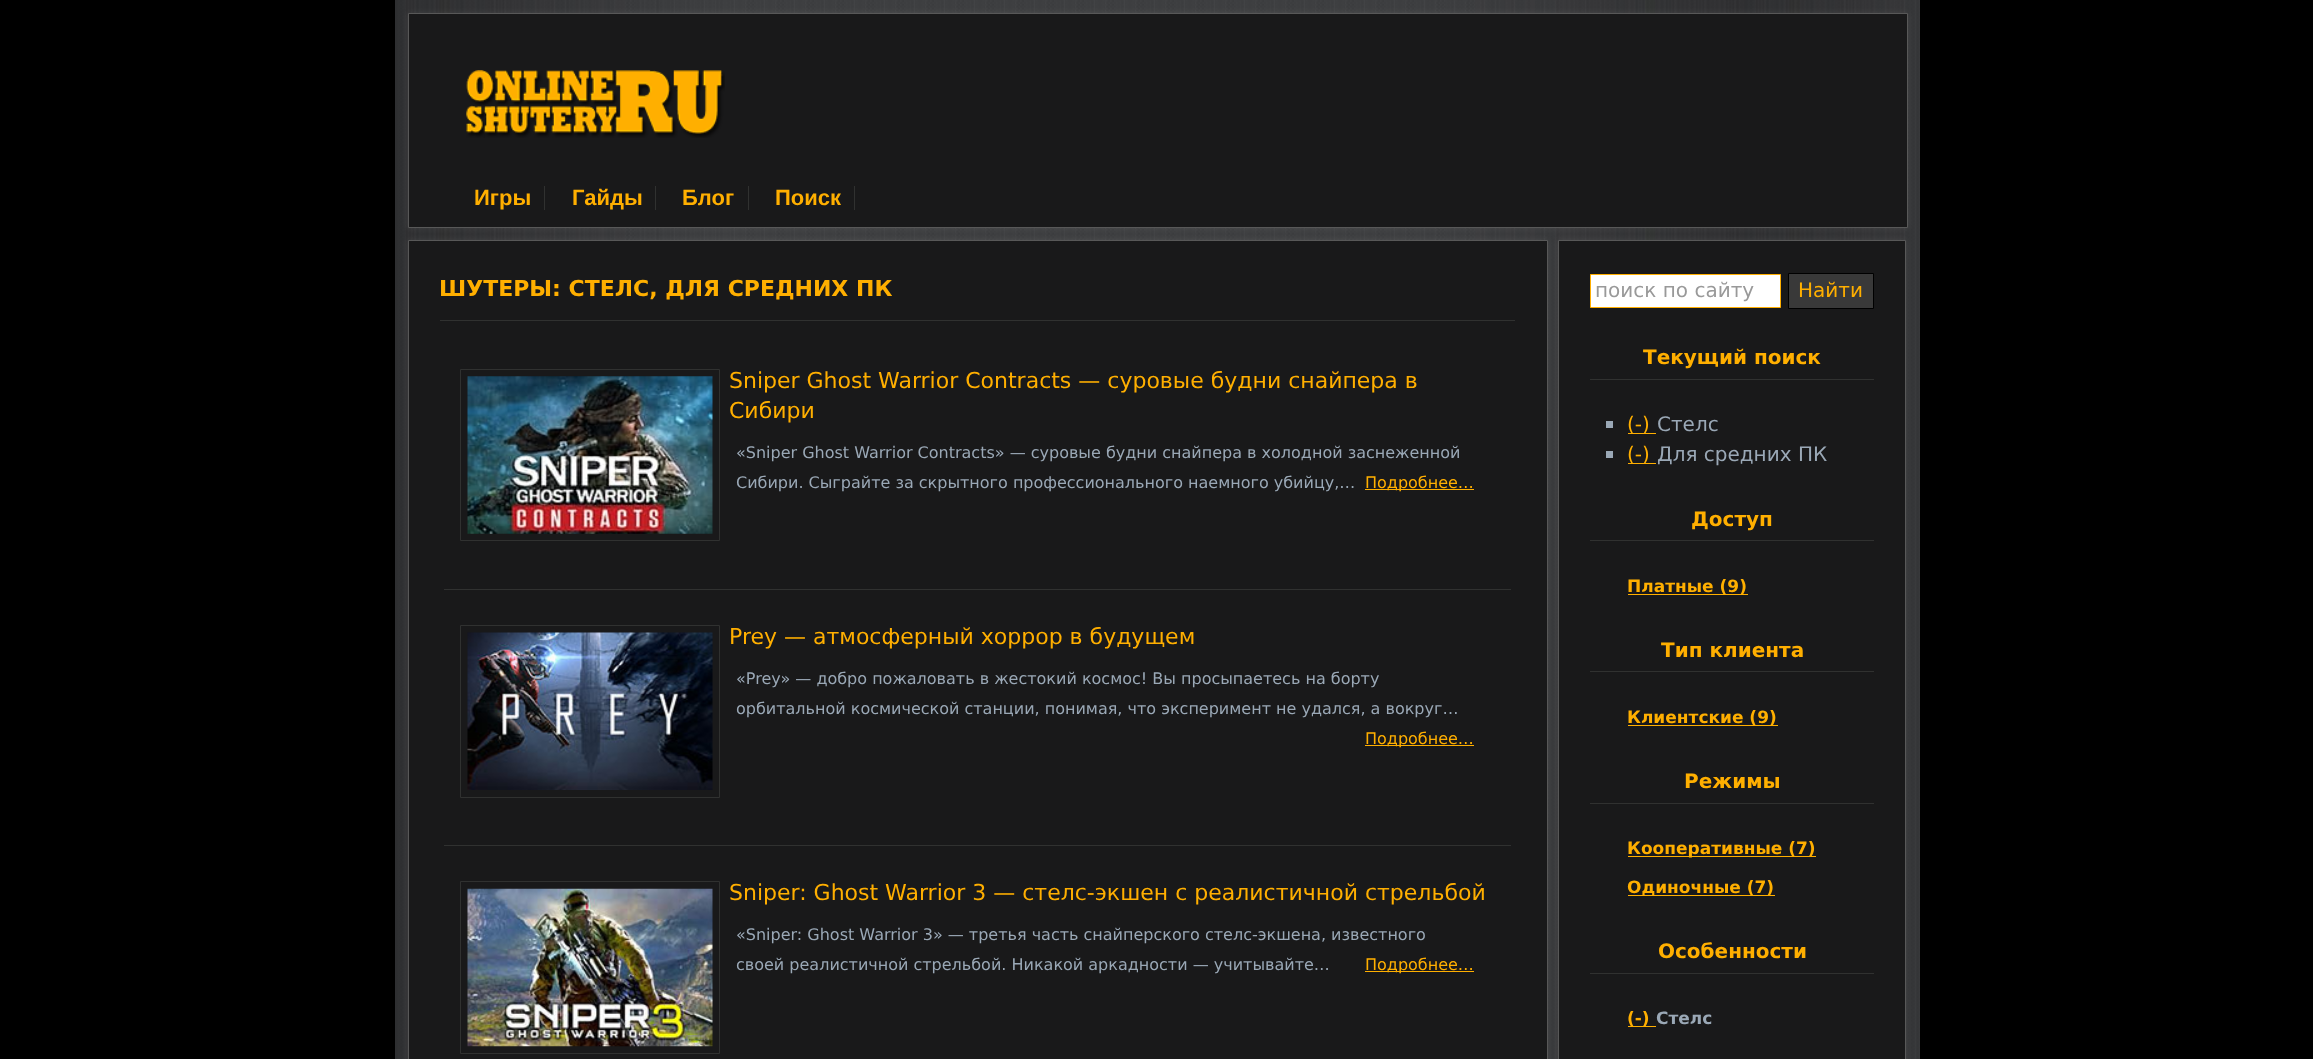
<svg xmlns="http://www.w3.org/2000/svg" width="2313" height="1059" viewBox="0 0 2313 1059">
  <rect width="100%" height="100%" fill="#000"/>
  <image x="395" y="0" width="1525" height="1059" href="img/1.png"/>
  <path d="M408 13h1500v215H408z" fill="#e2e2e21a" filter="blur(3px)"/>
  <path d="M408.5 13.5h1499v214H408.5z" fill="#19191a" stroke="#585858"/>
  <image x="466" y="70" width="259" height="68" href="img/2.png"/>
  <path d="M544 186h1v24H544z" fill="#303130"/>
  <path d="M655 186h1v24H655z" fill="#303130"/>
  <path d="M748 186h1v24H748z" fill="#303130"/>
  <path d="M854 186h1v24H854z" fill="#303130"/>
  <path d="M408 240h1140v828H408z" fill="#e2e2e21a" filter="blur(3px)"/>
  <path d="M408.5 240.5h1139v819H408.5z" fill="#19191a" stroke="#585858"/>
  <path d="M440 320h1075v1H440z" fill="#303130"/>
  <path d="M460.5 369.5h259v171H460.5z" fill="none" stroke="#303130"/>
  <image x="467" y="376" width="246" height="158" href="img/3.png"/>
  <path d="M1365 489h109v1H1365z" fill="#ffaf00"/>
  <path d="M444 589h1067v1H444z" fill="#303130"/>
  <path d="M460.5 625.5h259v172H460.5z" fill="none" stroke="#303130"/>
  <image x="467" y="632" width="246" height="158" href="img/4.png"/>
  <path d="M1365 745h109v1H1365z" fill="#ffaf00"/>
  <path d="M444 845h1067v1H444z" fill="#303130"/>
  <path d="M460.5 881.5h259v172H460.5z" fill="none" stroke="#303130"/>
  <image x="467" y="888" width="246" height="159" href="img/5.png"/>
  <path d="M1365 971h109v1H1365z" fill="#ffaf00"/>
  <path d="M1558 240h348v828H1558z" fill="#e2e2e21a" filter="blur(3px)"/>
  <path d="M1558.5 240.5h347v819H1558.5z" fill="#19191a" stroke="#585858"/>
  <path d="M1590.5 274.5h190v33H1590.5z" fill="#fff" stroke="#ffaf00"/>
  <path d="M1788.5 273.5h85v35H1788.5z" fill="#393939" stroke="#000"/>
  <path d="M1590 379h284v1H1590z" fill="#303130"/>
  <path d="M1606 421h7v7H1606z" fill="#9aa8b6"/>
  <path d="M1628 433h28v1H1628z" fill="#ffaf00"/>
  <path d="M1606 451h7v7H1606z" fill="#9aa8b6"/>
  <path d="M1628 463h28v1H1628z" fill="#ffaf00"/>
  <path d="M1590 540h284v1H1590z" fill="#303130"/>
  <path d="M1628 594h120v1H1628z" fill="#ffaf00"/>
  <path d="M1590 671h284v1H1590z" fill="#303130"/>
  <path d="M1628 725h150v1H1628z" fill="#ffaf00"/>
  <path d="M1590 803h284v1H1590z" fill="#303130"/>
  <path d="M1628 856h188v1H1628z" fill="#ffaf00"/>
  <path d="M1628 895h147v1H1628z" fill="#ffaf00"/>
  <path d="M1590 973h284v1H1590z" fill="#303130"/>
  <path d="M1628 1026h28v1H1628z" fill="#ffaf00"/>
  <g font-family="Liberation Sans" font-size="22" font-weight="bold" fill="#ffaf00">
    <text x="474" y="205">Игры</text>
    <text x="572" y="205">Гайды</text>
    <text x="682" y="205">Блог</text>
    <text x="775" y="205">Поиск</text>
  </g>
  <text x="439" y="296" font-family="DejaVu Sans" font-size="22" font-weight="bold" fill="#ffaf00">ШУТЕРЫ: СТЕЛС, ДЛЯ СРЕДНИХ ПК</text>
  <g font-family="DejaVu Sans" font-size="22" fill="#ffaf00">
    <text x="729" y="388">Sniper Ghost Warrior Contracts — суровые будни снайпера в</text>
    <text x="729" y="418">Сибири</text>
  </g>
  <g font-family="DejaVu Sans" font-size="16" fill="#9aa8b6">
    <text x="736" y="458">«Sniper Ghost Warrior Contracts» — суровые будни снайпера в холодной заснеженной</text>
    <text x="736" y="488">Сибири. Сыграйте за скрытного профессионального наемного убийцу,…</text>
  </g>
  <text x="1365" y="488" font-family="DejaVu Sans" font-size="16" fill="#ffaf00">Подробнее…</text>
  <text x="729" y="644" font-family="DejaVu Sans" font-size="22" fill="#ffaf00">Prey — атмосферный хоррор в будущем</text>
  <g font-family="DejaVu Sans" font-size="16" fill="#9aa8b6">
    <text x="736" y="684">«Prey» — добро пожаловать в жестокий космос! Вы просыпаетесь на борту</text>
    <text x="736" y="714">орбитальной космической станции, понимая, что эксперимент не удался, а вокруг…</text>
  </g>
  <text x="1365" y="744" font-family="DejaVu Sans" font-size="16" fill="#ffaf00">Подробнее…</text>
  <text x="729" y="900" font-family="DejaVu Sans" font-size="22" fill="#ffaf00">Sniper: Ghost Warrior 3 — стелс-экшен с реалистичной стрельбой</text>
  <g font-family="DejaVu Sans" font-size="16" fill="#9aa8b6">
    <text x="736" y="940">«Sniper: Ghost Warrior 3» — третья часть снайперского стелс-экшена, известного</text>
    <text x="736" y="970">своей реалистичной стрельбой. Никакой аркадности — учитывайте…</text>
  </g>
  <text x="1365" y="970" font-family="DejaVu Sans" font-size="16" fill="#ffaf00">Подробнее…</text>
  <text x="1595" y="297" font-family="DejaVu Sans" font-size="20" fill="#999">поиск по сайту</text>
  <text x="1798" y="297" font-family="DejaVu Sans" font-size="20" fill="#ffaf00">Найти</text>
  <text x="1643" y="364" font-family="DejaVu Sans" font-size="20" font-weight="bold" fill="#ffaf00">Текущий поиск</text>
  <text x="1627" y="431" font-family="DejaVu Sans" font-size="20" fill="#ffaf00">(-)</text>
  <text x="1657" y="431" font-family="DejaVu Sans" font-size="20" fill="#9aa8b6">Стелс</text>
  <text x="1627" y="461" font-family="DejaVu Sans" font-size="20" fill="#ffaf00">(-)</text>
  <text x="1657" y="461" font-family="DejaVu Sans" font-size="20" fill="#9aa8b6">Для средних ПК</text>
  <text x="1691" y="526" font-family="DejaVu Sans" font-size="20" font-weight="bold" fill="#ffaf00">Доступ</text>
  <text x="1627" y="592" font-family="DejaVu Sans" font-size="17" font-weight="bold" fill="#ffaf00">Платные (9)</text>
  <text x="1661" y="657" font-family="DejaVu Sans" font-size="20" font-weight="bold" fill="#ffaf00">Тип клиента</text>
  <text x="1627" y="723" font-family="DejaVu Sans" font-size="17" font-weight="bold" fill="#ffaf00">Клиентские (9)</text>
  <text x="1684" y="788" font-family="DejaVu Sans" font-size="20" font-weight="bold" fill="#ffaf00">Режимы</text>
  <g font-family="DejaVu Sans" font-size="17" font-weight="bold" fill="#ffaf00">
    <text x="1627" y="854">Кооперативные (7)</text>
    <text x="1627" y="893">Одиночные (7)</text>
  </g>
  <text x="1658" y="958" font-family="DejaVu Sans" font-size="20" font-weight="bold" fill="#ffaf00">Особенности</text>
  <text x="1627" y="1024" font-family="DejaVu Sans" font-size="17" font-weight="bold" fill="#ffaf00">(-)</text>
  <text x="1656" y="1024" font-family="DejaVu Sans" font-size="17" font-weight="bold" fill="#9aa8b6">Стелс</text>
</svg>
